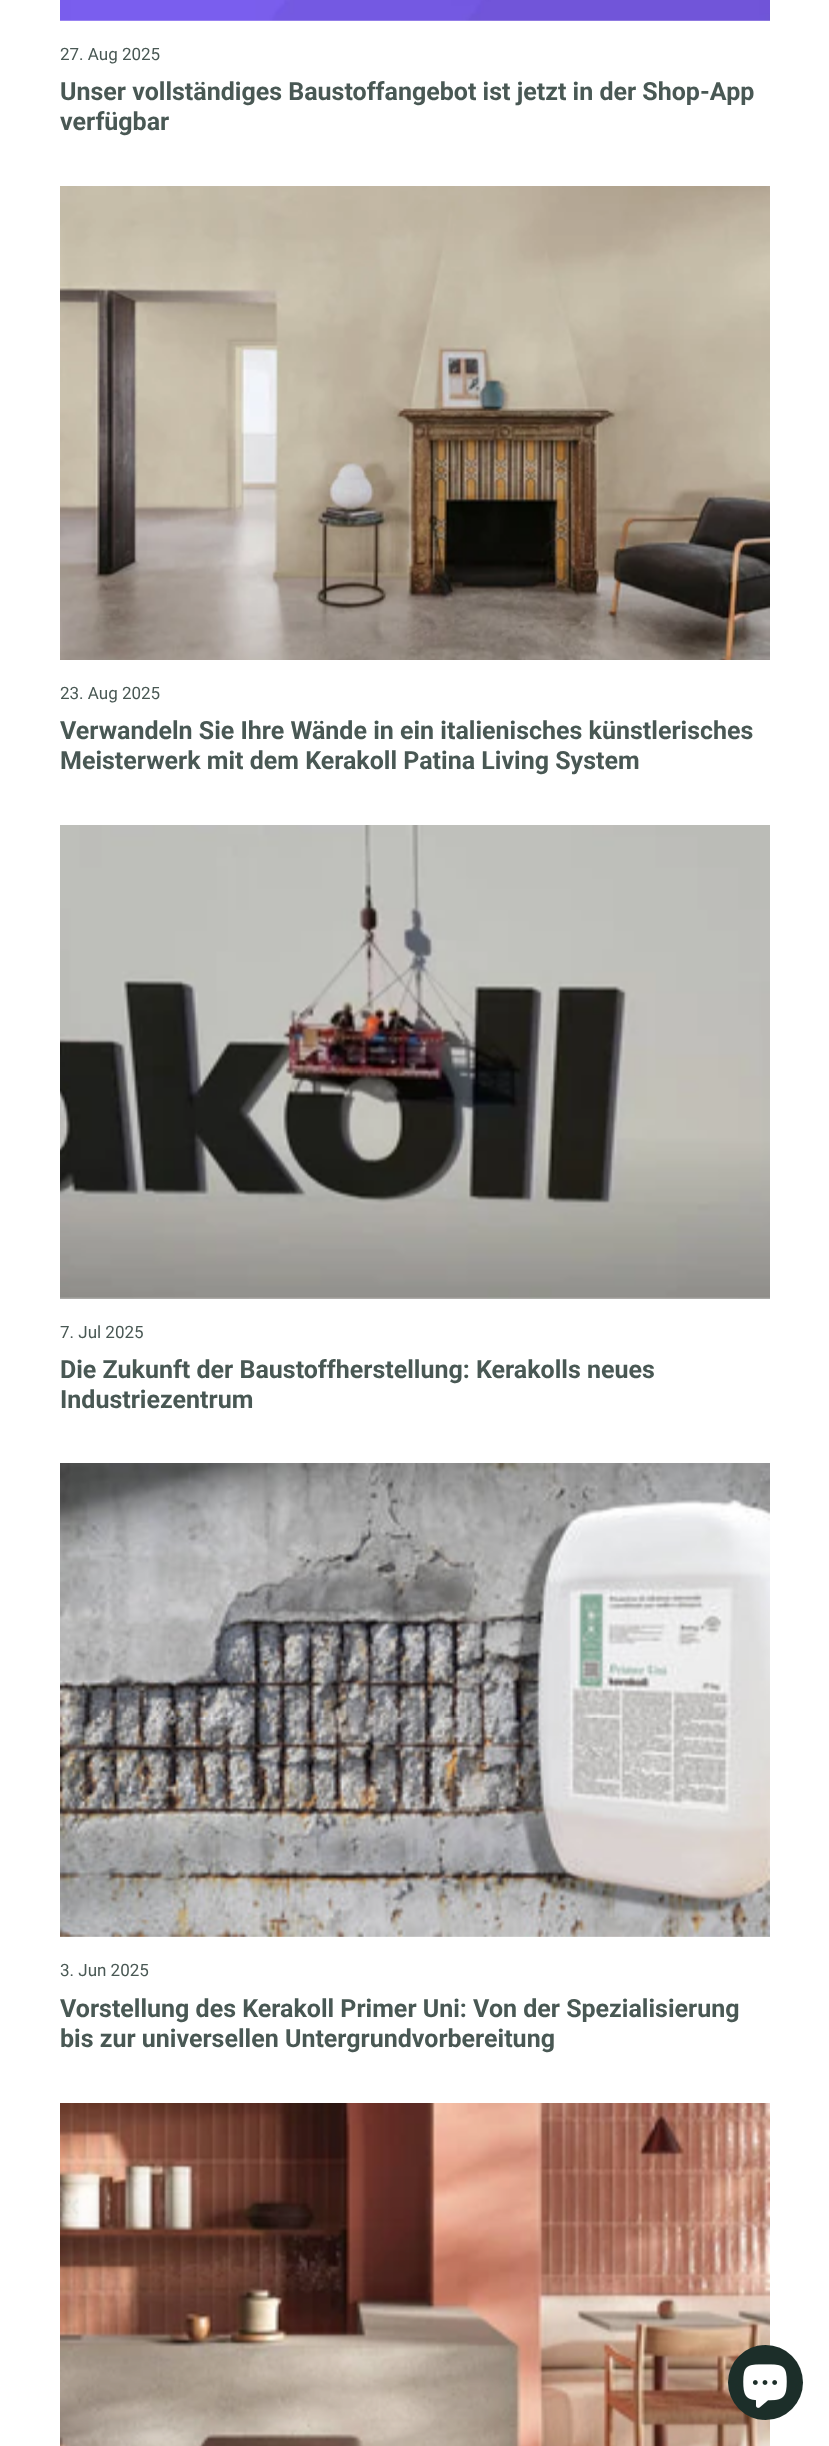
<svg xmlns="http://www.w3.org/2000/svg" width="829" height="2446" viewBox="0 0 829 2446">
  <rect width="100%" height="100%" fill="#fff"/>
  <image x="60" y="0" width="710" height="21" href="img/1.png"/>
  <image x="60" y="186" width="710" height="474" href="img/2.png"/>
  <image x="60" y="825" width="710" height="474" href="img/3.png"/>
  <image x="60" y="1463" width="710" height="474" href="img/4.png"/>
  <image x="60" y="2103" width="710" height="343" href="img/5.png"/>
  <circle cx="765.5" cy="2382.5" r="37.5" fill="#1c2e29"/>
  <image x="743" y="2364" width="44" height="44" href="img/6.png"/>
  <text x="60" y="60" font-family="Roboto" font-size="17" fill="#495854">27. Aug 2025</text>
  <g font-family="Roboto" font-size="25" font-weight="bold" fill="#495854">
    <text x="60" y="100">Unser vollständiges Baustoffangebot ist jetzt in der Shop-App</text>
    <text x="60" y="130">verfügbar</text>
  </g>
  <text x="60" y="699" font-family="Roboto" font-size="17" fill="#495854">23. Aug 2025</text>
  <g font-family="Roboto" font-size="25" font-weight="bold" fill="#495854">
    <text x="60" y="739">Verwandeln Sie Ihre Wände in ein italienisches künstlerisches</text>
    <text x="60" y="769">Meisterwerk mit dem Kerakoll Patina Living System</text>
  </g>
  <text x="60" y="1338" font-family="Roboto" font-size="17" fill="#495854">7. Jul 2025</text>
  <g font-family="Roboto" font-size="25" font-weight="bold" fill="#495854">
    <text x="60" y="1378">Die Zukunft der Baustoffherstellung: Kerakolls neues</text>
    <text x="60" y="1408">Industriezentrum</text>
  </g>
  <text x="60" y="1976" font-family="Roboto" font-size="17" fill="#495854">3. Jun 2025</text>
  <g font-family="Roboto" font-size="25" font-weight="bold" fill="#495854">
    <text x="60" y="2017">Vorstellung des Kerakoll Primer Uni: Von der Spezialisierung</text>
    <text x="60" y="2047">bis zur universellen Untergrundvorbereitung</text>
  </g>
</svg>
